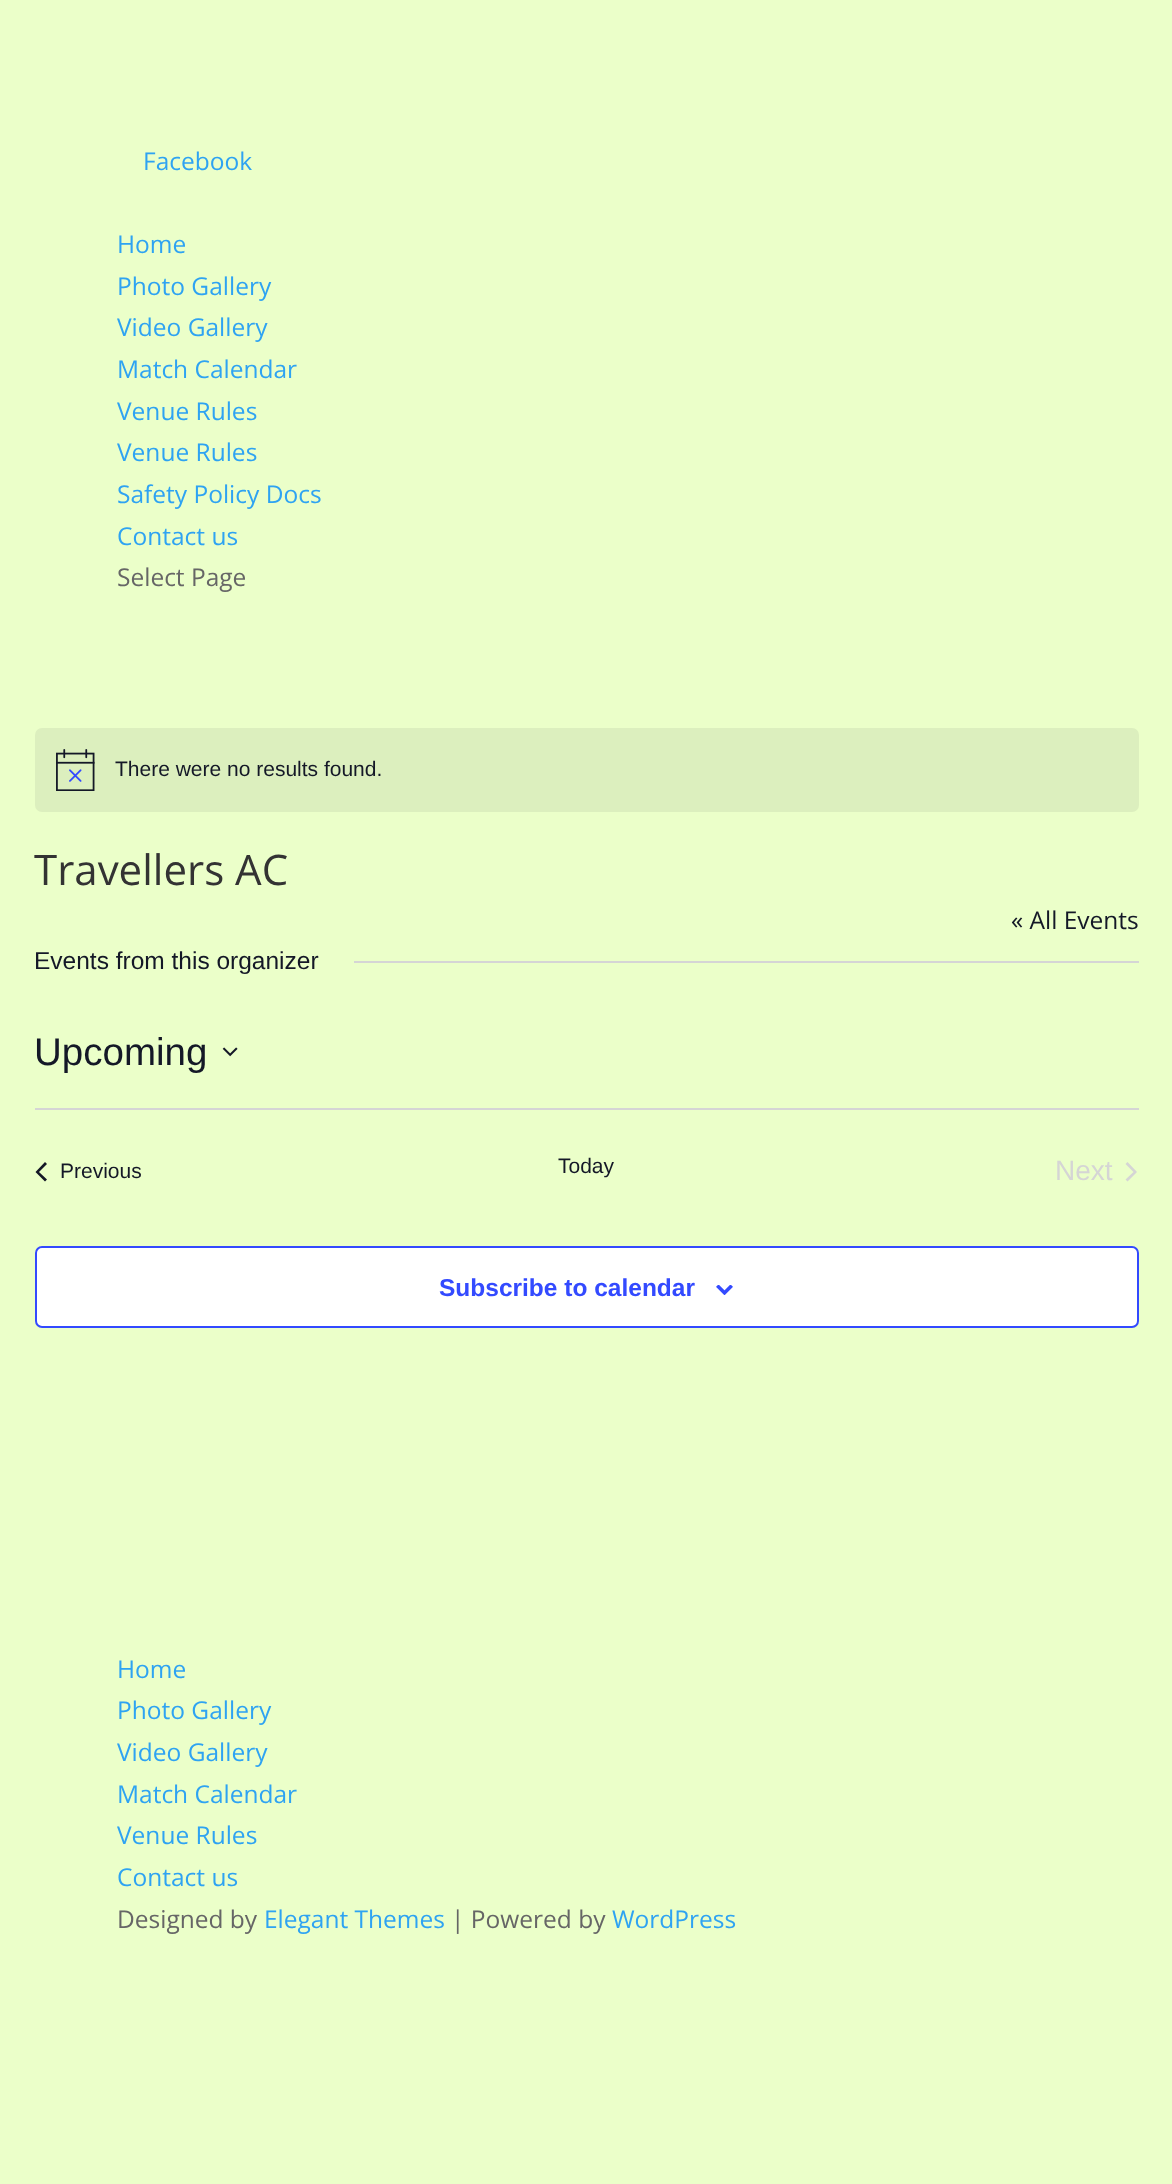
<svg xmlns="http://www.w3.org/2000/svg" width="1172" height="2184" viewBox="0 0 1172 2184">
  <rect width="100%" height="100%" fill="#ebffc9"/>
  <rect x="35" y="728" width="1104" height="84" rx="7" fill="#dcefbe"/>
  <image x="56" y="749" width="39" height="42" href="img/1.png"/>
  <path d="M354 961h785v2H354z" fill="#d5d5d5"/>
  <image x="222" y="1047" width="16" height="10" href="img/2.png"/>
  <path d="M35 1108h1104v2H35z" fill="#d5d5d5"/>
  <path d="M47 1179.5L45 1181.5L35.5 1172L45 1162L47 1164L39 1172Z" fill="#141827"/>
  <path d="M1125.5 1164L1127.5 1162L1137 1172L1127.5 1181.5L1125.5 1179.5L1133.5 1172Z" fill="#d5d5d5"/>
  <rect x="36" y="1247" width="1102" height="80" rx="6" fill="#fff" stroke="#334aff" stroke-width="2"/>
  <image x="716" y="1285" width="17" height="10" href="img/3.png"/>
  <g font-family="Open Sans" font-size="24.5" fill="#2ea3f2">
    <text x="143" y="170">Facebook</text>
    <text x="117" y="253">Home</text>
    <text x="117" y="295">Photo Gallery</text>
    <text x="117" y="336">Video Gallery</text>
    <text x="117" y="378">Match Calendar</text>
    <text x="117" y="420">Venue Rules</text>
    <text x="117" y="461">Venue Rules</text>
    <text x="117" y="503">Safety Policy Docs</text>
    <text x="117" y="545">Contact us</text>
  </g>
  <text x="117" y="586" font-family="Open Sans" font-size="24.5" fill="#666">Select Page</text>
  <text x="115" y="776" font-family="Liberation Sans" font-size="21" fill="#141827">There were no results found.</text>
  <text x="34" y="885" font-family="Open Sans" font-size="42" fill="#333">Travellers AC</text>
  <text x="1011" y="929" font-family="Open Sans" font-size="24.5" fill="#141827">« All Events</text>
  <text x="34" y="969" font-family="Liberation Sans" font-size="24.5" fill="#141827">Events from this organizer</text>
  <text x="34" y="1065" font-family="Liberation Sans" font-size="38.5" fill="#141827">Upcoming</text>
  <g font-family="Liberation Sans" font-size="21" fill="#141827">
    <text x="60" y="1178">Previous</text>
    <text x="558" y="1173">Today</text>
  </g>
  <text x="1055" y="1180" font-family="Liberation Sans" font-size="28" fill="#d5d5d5">Next</text>
  <text x="439" y="1296" font-family="Liberation Sans" font-size="24.5" font-weight="bold" fill="#334aff">Subscribe to calendar</text>
  <g font-family="Open Sans" font-size="24.5" fill="#2ea3f2">
    <text x="117" y="1678">Home</text>
    <text x="117" y="1719">Photo Gallery</text>
    <text x="117" y="1761">Video Gallery</text>
    <text x="117" y="1803">Match Calendar</text>
    <text x="117" y="1844">Venue Rules</text>
    <text x="117" y="1886">Contact us</text>
  </g>
  <text x="117" y="1928" font-family="Open Sans" font-size="24.5" fill="#666">Designed by</text>
  <text x="264" y="1928" font-family="Open Sans" font-size="24.5" fill="#2ea3f2">Elegant Themes</text>
  <text x="451" y="1928" font-family="Open Sans" font-size="24.5" fill="#666">| Powered by</text>
  <text x="612" y="1928" font-family="Open Sans" font-size="24.5" fill="#2ea3f2">WordPress</text>
</svg>
